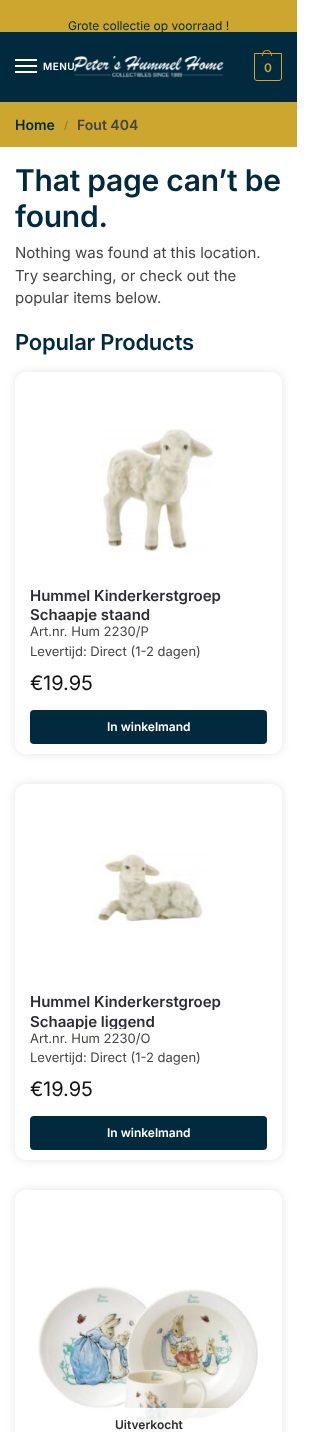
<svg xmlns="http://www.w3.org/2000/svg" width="312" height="1432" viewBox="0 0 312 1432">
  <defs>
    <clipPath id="clip1"><path d="M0 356H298V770H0ZM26 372H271C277 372 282 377 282 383V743C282 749 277 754 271 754H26C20 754 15 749 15 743V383C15 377 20 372 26 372Z" clip-rule="evenodd"/></clipPath>
    <clipPath id="clip2"><path d="M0 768H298V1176H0ZM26 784H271C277 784 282 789 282 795V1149C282 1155 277 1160 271 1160H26C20 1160 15 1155 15 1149V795C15 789 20 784 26 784Z" clip-rule="evenodd"/></clipPath>
    <clipPath id="clip3"><path d="M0 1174H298V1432H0ZM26 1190H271C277 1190 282 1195 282 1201V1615C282 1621 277 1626 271 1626H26C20 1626 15 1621 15 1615V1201C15 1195 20 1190 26 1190Z" clip-rule="evenodd"/></clipPath>
    <clipPath id="clip4"><path d="M30 586h237v36H30z"/></clipPath>
    <clipPath id="clip5"><path d="M30 992h237v37H30z"/></clipPath>
  </defs>
  <rect width="100%" height="100%" fill="#fff"/>
  <path d="M0 0h297v32H0z" fill="#cda630"/>
  <path d="M0 32h297v70H0z" fill="#022a3e"/>
  <path d="M15 59h22v2H15z" fill="#fff"/>
  <path d="M15 65h22v2H15z" fill="#fff"/>
  <path d="M15 71h22v2H15z" fill="#fff"/>
  <image x="73" y="56" width="151" height="22" href="img/1.png"/>
  <path d="M254.5 53.5H281.5V78C281.5 79.5 280.5 80.5 279 80.5H257C255.5 80.5 254.5 79.5 254.5 78Z" fill="none" stroke="#cda630"/>
  <path d="M267 50C270.5 50 272 53 272 56H262C262 53 263.5 50 267 50ZM267 51C270 51 271 53.5 271 56H263C263 53.5 264 51 267 51Z" fill="#dc9814" fill-rule="evenodd"/>
  <path d="M0 102h297v45H0z" fill="#cda630"/>
  <g clip-path="url(#clip1)">
    <rect x="15" y="372" width="267" height="382" rx="11" fill="#0000001a" filter="blur(5px)"/>
  </g>
  <image x="100" y="428" width="114" height="124" href="img/2.png"/>
  <rect x="30" y="710" width="237" height="34" rx="4" fill="#022a3e"/>
  <g clip-path="url(#clip2)">
    <rect x="15" y="784" width="267" height="376" rx="11" fill="#0000001a" filter="blur(5px)"/>
  </g>
  <image x="93" y="851" width="114" height="74" href="img/3.png"/>
  <rect x="30" y="1116" width="237" height="34" rx="4" fill="#022a3e"/>
  <g clip-path="url(#clip3)">
    <rect x="15" y="1190" width="267" height="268" rx="11" fill="#0000001a" filter="blur(5px)"/>
  </g>
  <image x="38" y="1286" width="220" height="146" href="img/4.png"/>
  <path d="M125 1408h106v24H125z" fill="#ffffffd9"/>
  <text x="68" y="30" font-family="Inter" font-size="12" fill="#022a3e">Grote collectie op voorraad !</text>
  <text x="43" y="70" font-family="Inter" font-size="10" font-weight="600" letter-spacing="0.5" fill="#fff">MENU</text>
  <text x="264" y="72" font-family="Inter" font-size="12" font-weight="600" letter-spacing="-1" fill="#cda630">0</text>
  <text x="15" y="130" font-family="Inter" font-size="14" font-weight="600" fill="#022a3e">Home</text>
  <text x="64" y="129" font-family="Inter" font-size="11" font-weight="600" fill="#967f38">/</text>
  <text x="77" y="130" font-family="Inter" font-size="14" font-weight="600" fill="#444">Fout 404</text>
  <g font-family="Inter" font-size="30" font-weight="600" letter-spacing="-0.25" fill="#022a3e">
    <text x="15" y="191">That page can’t be</text>
    <text x="15" y="227">found.</text>
  </g>
  <g font-family="Inter" font-size="15" fill="#444">
    <text x="15" y="258">Nothing was found at this location.</text>
    <text x="15" y="281">Try searching, or check out the</text>
    <text x="15" y="303">popular items below.</text>
  </g>
  <text x="15" y="350" font-family="Inter" font-size="22" font-weight="600" letter-spacing="-0.25" fill="#022a3e">Popular Products</text>
  <text x="30" y="601" font-family="Inter" font-size="15" font-weight="600" fill="#2c2d33">Hummel Kinderkerstgroep</text>
  <g clip-path="url(#clip4)">
    <text x="30" y="620" font-family="Inter" font-size="15" font-weight="600" fill="#2c2d33">Schaapje staand</text>
  </g>
  <g font-family="Inter" font-size="13" fill="#444">
    <text x="30" y="636">Art.nr. Hum 2230/P</text>
    <text x="30" y="656">Levertijd: Direct (1-2 dagen)</text>
  </g>
  <g font-family="Inter" font-size="20" fill="#111">
    <text x="30" y="690">€</text>
    <text x="43" y="690">19.95</text>
  </g>
  <text x="107" y="731" font-family="Inter" font-size="12" font-weight="600" fill="#fff">In winkelmand</text>
  <text x="30" y="1007" font-family="Inter" font-size="15" font-weight="600" fill="#2c2d33">Hummel Kinderkerstgroep</text>
  <g clip-path="url(#clip5)">
    <text x="30" y="1027" font-family="Inter" font-size="15" font-weight="600" fill="#2c2d33">Schaapje liggend</text>
  </g>
  <g font-family="Inter" font-size="13" fill="#444">
    <text x="30" y="1043">Art.nr. Hum 2230/O</text>
    <text x="30" y="1062">Levertijd: Direct (1-2 dagen)</text>
  </g>
  <g font-family="Inter" font-size="20" fill="#111">
    <text x="30" y="1096">€</text>
    <text x="43" y="1096">19.95</text>
  </g>
  <text x="107" y="1137" font-family="Inter" font-size="12" font-weight="600" fill="#fff">In winkelmand</text>
  <text x="115" y="1429" font-family="Inter" font-size="12" font-weight="600" fill="#2c2d33">Uitverkocht</text>
</svg>
